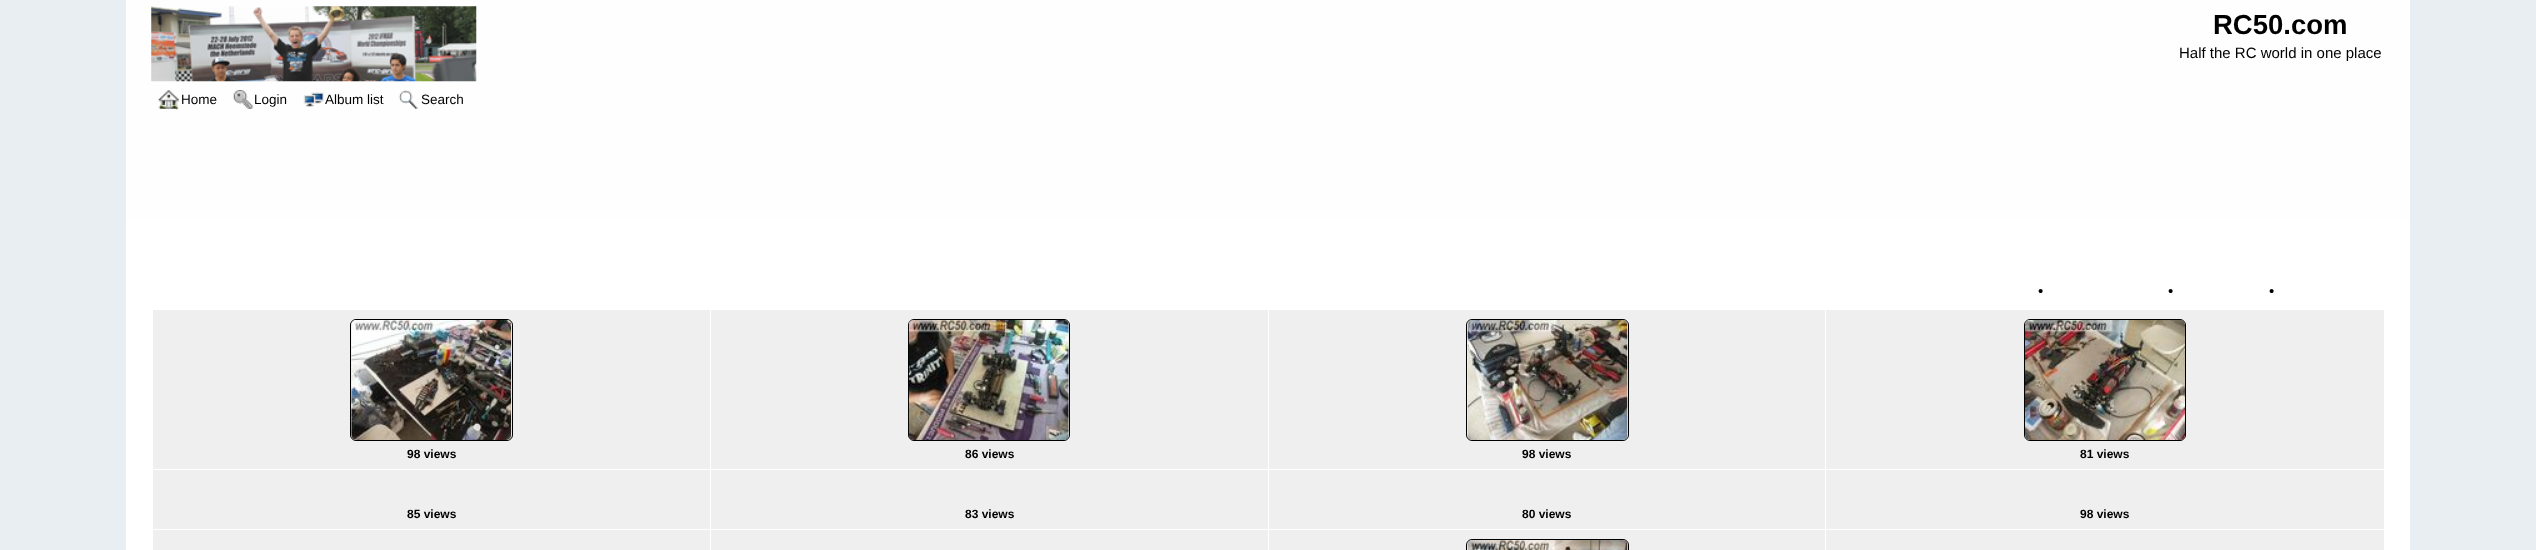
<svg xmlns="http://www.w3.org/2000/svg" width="2536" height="550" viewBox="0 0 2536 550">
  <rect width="100%" height="100%" fill="#e9eef2"/>
  <path d="M126 0h2284v219H126z" fill="#fefefe"/>
  <image x="151" y="6" width="326" height="76" href="img/1.png"/>
  <image x="158" y="90" width="21" height="20" href="img/2.png"/>
  <image x="233" y="90" width="20" height="19" href="img/3.png"/>
  <image x="303" y="92" width="21" height="15" href="img/4.png"/>
  <image x="398" y="90" width="20" height="19" href="img/5.png"/>
  <path d="M126 219h2284v331H126z" fill="#fff"/>
  <path d="M153 310h557v159H153z" fill="#efefef"/>
  <rect x="350.5" y="319.5" width="162" height="121" rx="5.5" fill="none" stroke="#000"/>
  <image x="351" y="320" width="161" height="120" href="img/6.png"/>
  <path d="M711 310h557v159H711z" fill="#efefef"/>
  <rect x="908.5" y="319.5" width="161" height="121" rx="5.5" fill="none" stroke="#000"/>
  <image x="908" y="320" width="161" height="120" href="img/7.png"/>
  <path d="M1269 310h556v159H1269z" fill="#efefef"/>
  <rect x="1466.5" y="319.5" width="162" height="121" rx="5.5" fill="none" stroke="#000"/>
  <image x="1467" y="320" width="161" height="120" href="img/8.png"/>
  <path d="M1826 310h558v159H1826z" fill="#efefef"/>
  <rect x="2024.5" y="319.5" width="161" height="121" rx="5.5" fill="none" stroke="#000"/>
  <image x="2025" y="320" width="160" height="120" href="img/9.png"/>
  <path d="M153 470h557v59H153z" fill="#efefef"/>
  <path d="M711 470h557v59H711z" fill="#efefef"/>
  <path d="M1269 470h556v59H1269z" fill="#efefef"/>
  <path d="M1826 470h558v59H1826z" fill="#efefef"/>
  <path d="M153 530h557v20H153z" fill="#efefef"/>
  <path d="M711 530h557v20H711z" fill="#efefef"/>
  <path d="M1269 530h556v20H1269z" fill="#efefef"/>
  <rect x="1466.5" y="539.5" width="162" height="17" rx="5.5" fill="none" stroke="#000"/>
  <image x="1467" y="540" width="161" height="10" href="img/10.png"/>
  <path d="M1826 530h558v20H1826z" fill="#efefef"/>
  <text x="2213" y="34" font-family="Liberation Sans" font-size="27.5" font-weight="bold" fill="#000">RC50.com</text>
  <text x="2179" y="58" font-family="Liberation Sans" font-size="15" fill="#000">Half the RC world in one place</text>
  <g font-family="Liberation Sans" font-size="13.5" fill="#000">
    <text x="181" y="104">Home</text>
    <text x="254" y="104">Login</text>
    <text x="325" y="104">Album list</text>
    <text x="421" y="104">Search</text>
  </g>
  <g font-family="Liberation Sans" font-size="15" fill="#000">
    <text x="2038" y="296">•</text>
    <text x="2168" y="296">•</text>
    <text x="2269" y="296">•</text>
  </g>
  <g font-family="Liberation Sans" font-size="12" font-weight="bold" fill="#000">
    <text x="407" y="458">98 views</text>
    <text x="965" y="458">86 views</text>
    <text x="1522" y="458">98 views</text>
    <text x="2080" y="458">81 views</text>
    <text x="407" y="518">85 views</text>
    <text x="965" y="518">83 views</text>
    <text x="1522" y="518">80 views</text>
    <text x="2080" y="518">98 views</text>
  </g>
</svg>
